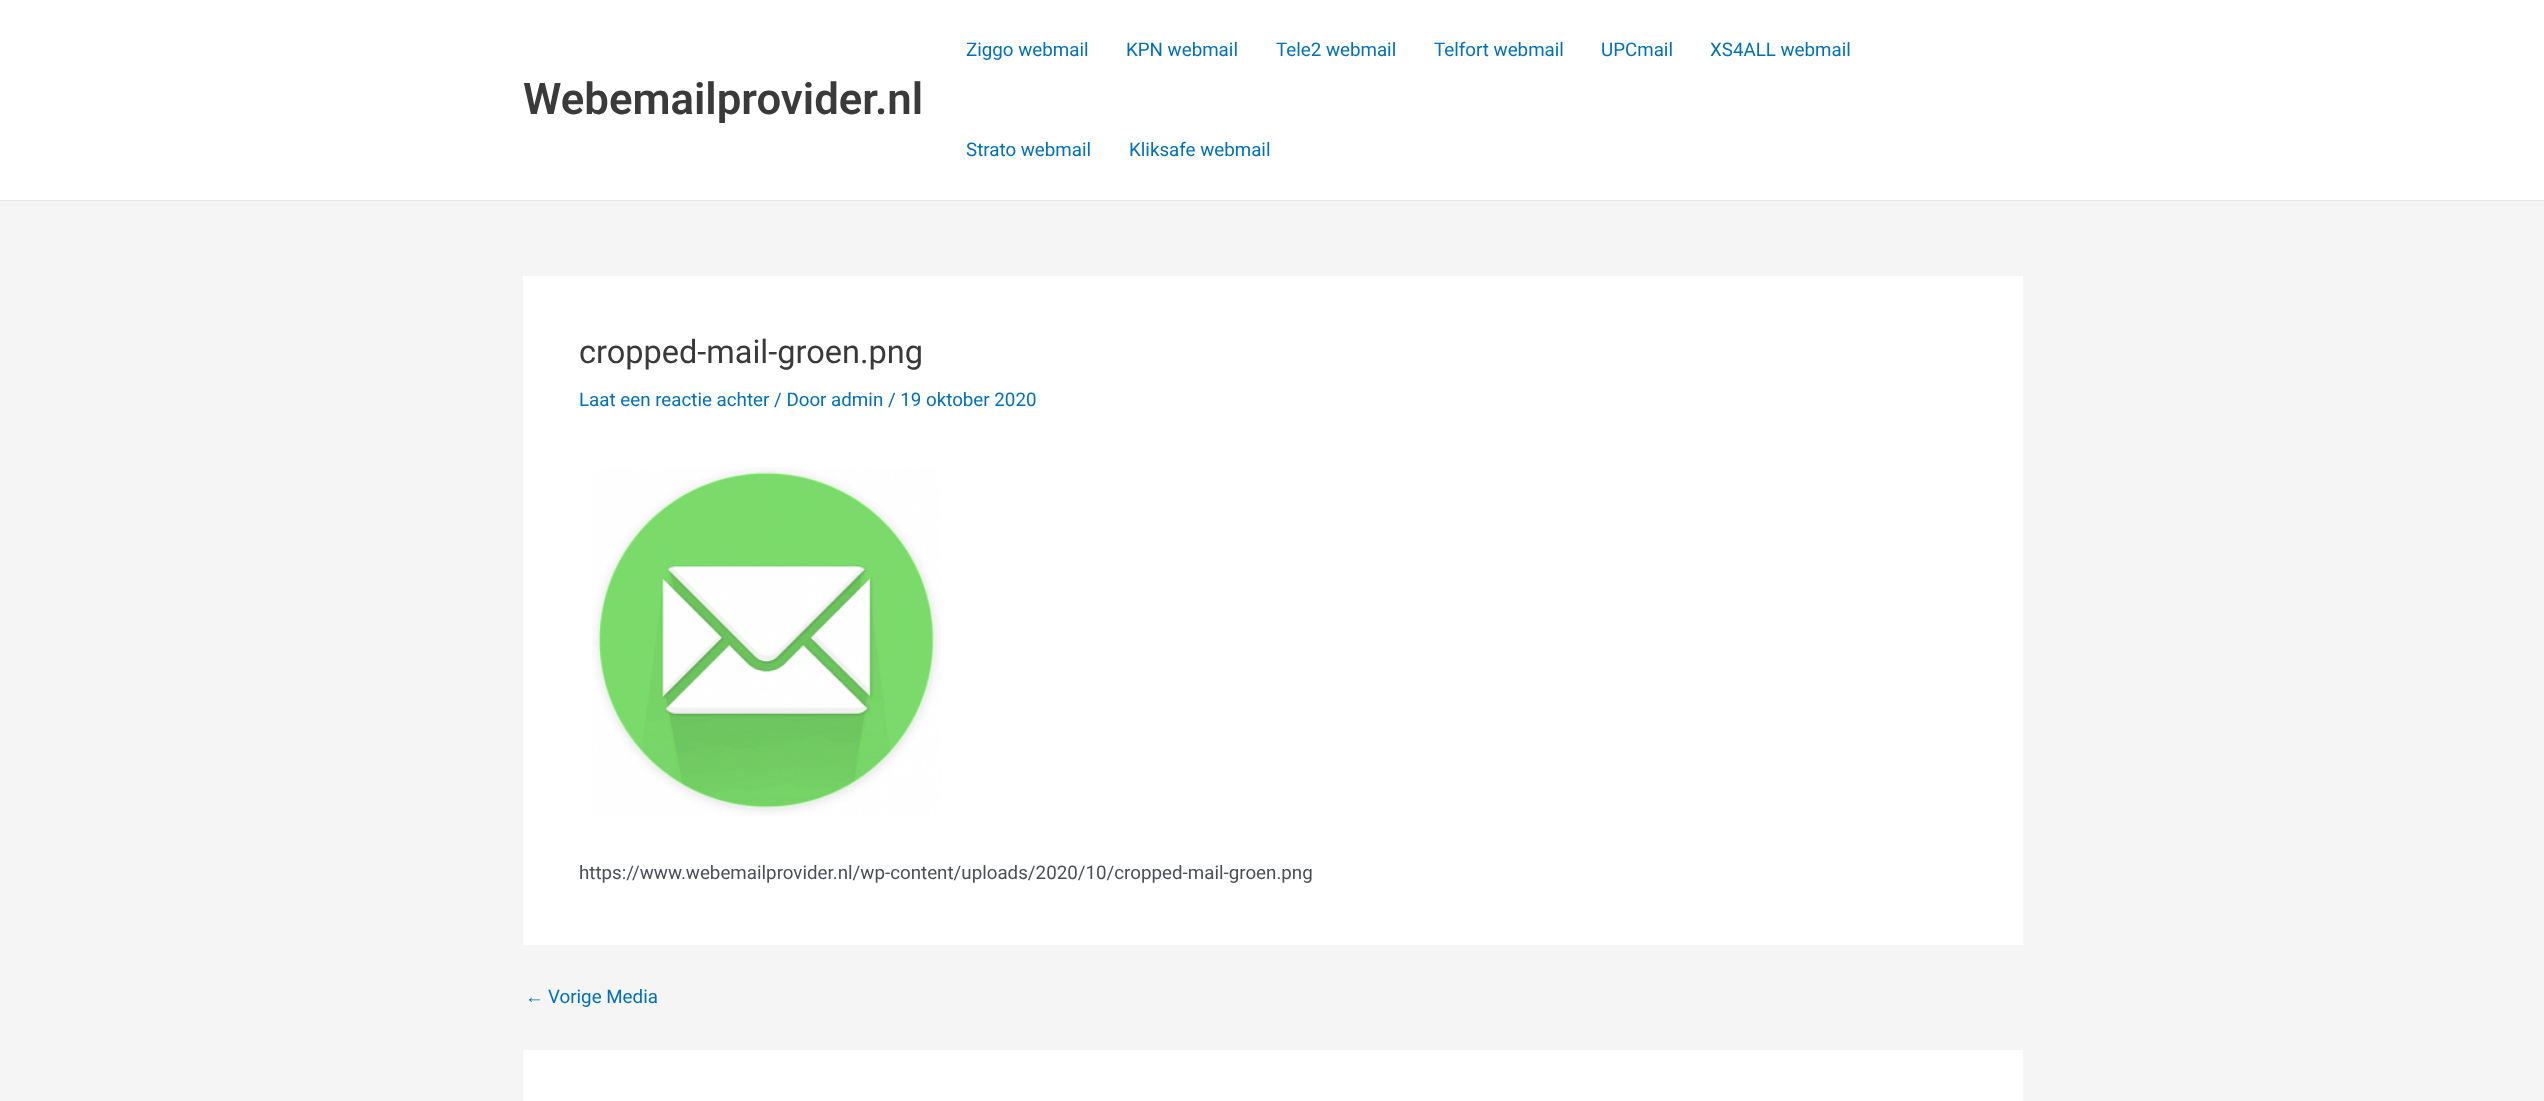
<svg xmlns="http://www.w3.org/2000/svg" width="2544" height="1101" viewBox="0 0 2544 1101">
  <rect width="100%" height="100%" fill="#f5f5f5"/>
  <path d="M0 0h2544v200H0z" fill="#fff"/>
  <path d="M0 200h2544v1H0z" fill="#e5e5e5"/>
  <path d="M523 276h1500v669H523z" fill="#fff"/>
  <image x="592" y="467" width="349" height="349" href="img/1.png"/>
  <path d="M523 1050h1500v51H523z" fill="#fff"/>
  <text x="523" y="114" font-family="Roboto" font-size="43.75" font-weight="600" fill="#3a3a3a">Webemailprovider.nl</text>
  <g font-family="Roboto" font-size="18.75" fill="#0170b9">
    <text x="966" y="56">Ziggo webmail</text>
    <text x="1126" y="56">KPN webmail</text>
    <text x="1276" y="56">Tele2 webmail</text>
    <text x="1434" y="56">Telfort webmail</text>
    <text x="1601" y="56">UPCmail</text>
    <text x="1710" y="56">XS4ALL webmail</text>
    <text x="966" y="156">Strato webmail</text>
    <text x="1129" y="156">Kliksafe webmail</text>
  </g>
  <text x="579" y="363" font-family="Roboto" font-size="32.5" fill="#3a3a3a">cropped-mail-groen.png</text>
  <text x="579" y="406" font-family="Roboto" font-size="18.75" fill="#0170b9">Laat een reactie achter / Door admin / 19 oktober 2020</text>
  <text x="579" y="879" font-family="Roboto" font-size="18.75" fill="#4b4f58">https://www.webemailprovider.nl/wp-content/uploads/2020/10/cropped-mail-groen.png</text>
  <text x="525" y="1003" font-family="Liberation Sans" font-size="18.75" fill="#0170b9">←</text>
  <text x="548" y="1003" font-family="Roboto" font-size="18.75" fill="#0170b9">Vorige Media</text>
</svg>
